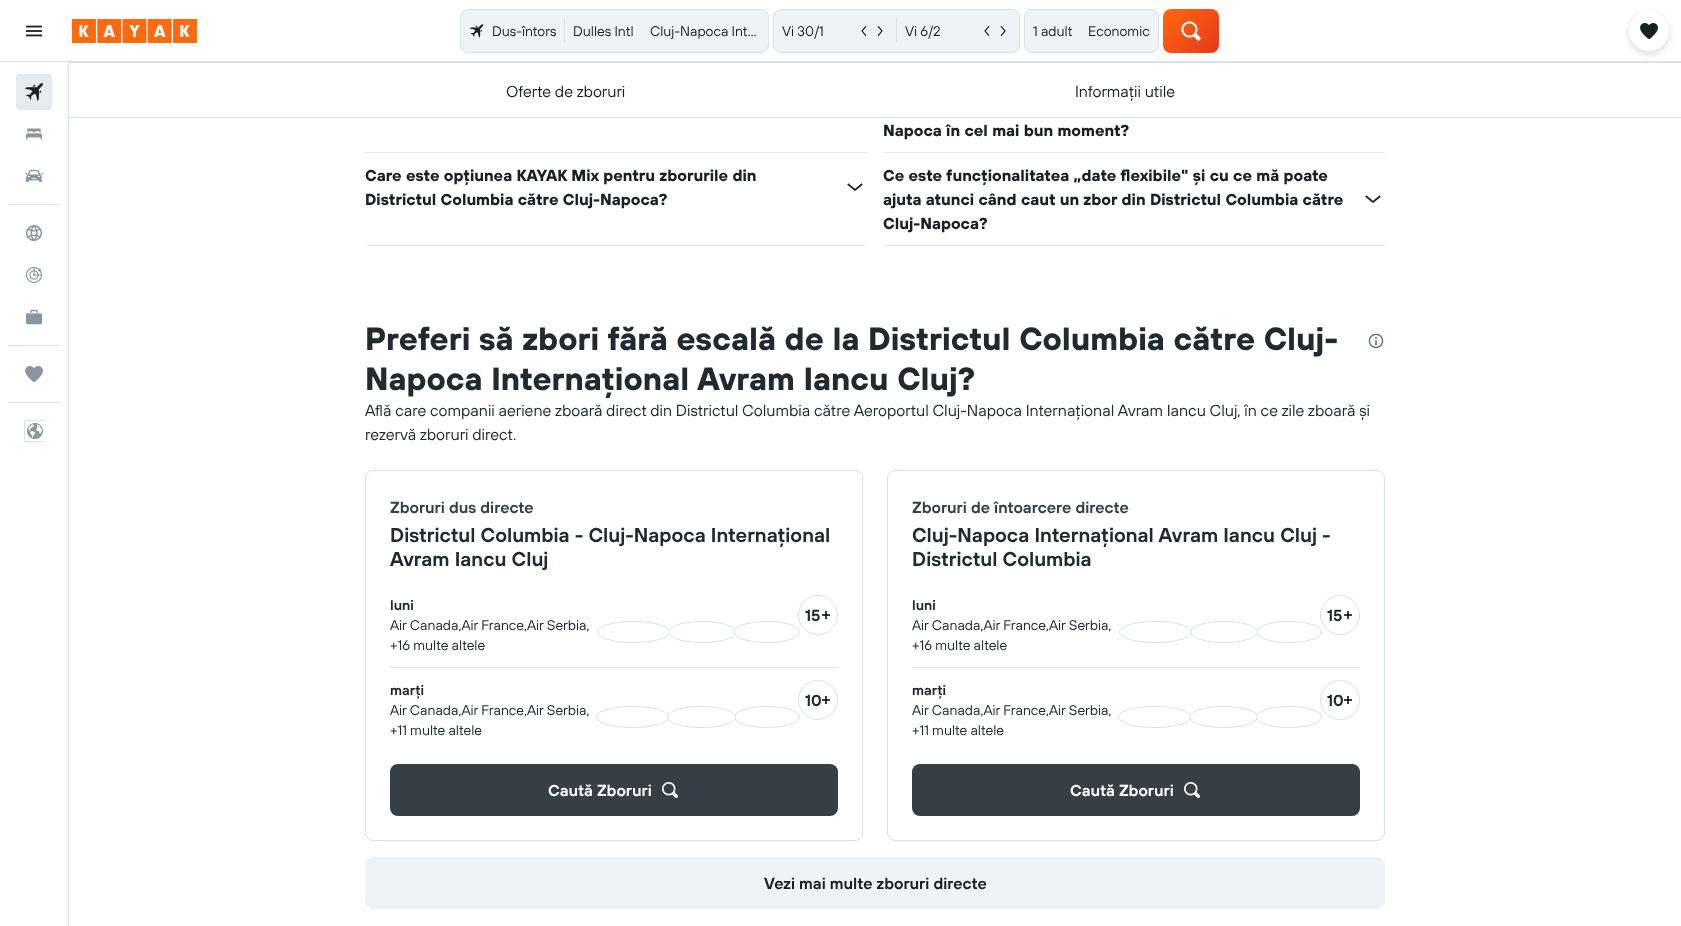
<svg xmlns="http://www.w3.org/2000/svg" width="1681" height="926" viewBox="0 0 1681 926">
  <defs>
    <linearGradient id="g1" gradientUnits="userSpaceOnUse" x1="1166" y1="6" x2="1216" y2="56"><stop offset="0" stop-color="#ff690f"/><stop offset="1" stop-color="#e8381b"/></linearGradient>
    <clipPath id="clip1"><path d="M24 420h20v22H24z"/></clipPath>
  </defs>
  <rect width="100%" height="100%" fill="#fff"/>
  <path d="M0 61h1681v1H0z" fill="#d9e2e8"/>
  <image x="26" y="25" width="16" height="12" href="img/1.png"/>
  <image x="72" y="19" width="125" height="24" href="img/2.png"/>
  <rect x="460.5" y="9.5" width="308" height="43" rx="7.5" fill="#f0f3f5" stroke="#d9e2e8"/>
  <image x="469" y="24" width="15" height="14" href="img/3.png"/>
  <path d="M564 19h1v24H564z" fill="#d9e2e8"/>
  <rect x="773.5" y="9.5" width="246" height="43" rx="7.5" fill="#f0f3f5" stroke="#d9e2e8"/>
  <image x="861" y="25" width="6" height="12" href="img/4.png"/>
  <image x="877" y="25" width="6" height="12" href="img/5.png"/>
  <path d="M896 19h1v24H896z" fill="#d9e2e8"/>
  <image x="984" y="25" width="6" height="12" href="img/4.png"/>
  <image x="1000" y="25" width="6" height="12" href="img/5.png"/>
  <rect x="1024.5" y="9.5" width="134" height="43" rx="7.5" fill="#f0f3f5" stroke="#d9e2e8"/>
  <rect x="1163" y="9" width="56" height="44" rx="8" fill="url(#g1)"/>
  <image x="1181" y="21" width="20" height="20" href="img/6.png"/>
  <path d="M69 62h1612v1H69z" fill="#d9e2e8"/>
  <rect x="1629" y="14" width="40" height="40" rx="20" fill="#19202429" filter="blur(3px)"/>
  <circle cx="1649" cy="31" r="20" fill="#fff"/>
  <image x="1640" y="23" width="18" height="16" href="img/7.png"/>
  <path d="M68 62h1v864H68z" fill="#d9e2e8"/>
  <rect x="16" y="74" width="36" height="36" rx="4" fill="#e6ebef"/>
  <image x="25" y="83" width="18" height="18" href="img/8.png"/>
  <image x="26" y="128" width="16" height="12" href="img/9.png"/>
  <image x="25" y="169" width="18" height="13" href="img/10.png"/>
  <path d="M8 204h52v1H8z" fill="#d9e2e8"/>
  <image x="26" y="225" width="16" height="16" href="img/11.png"/>
  <image x="26" y="267" width="16" height="16" href="img/12.png"/>
  <image x="26" y="309" width="16" height="16" href="img/13.png"/>
  <path d="M8 345h52v1H8z" fill="#d9e2e8"/>
  <image x="25" y="366" width="18" height="16" href="img/14.png"/>
  <path d="M8 402h52v1H8z" fill="#d9e2e8"/>
  <g clip-path="url(#clip1)">
    <path d="M24.5 420.5h21v21H24.5z" fill="none" stroke="#d9e2e8"/>
  </g>
  <image x="27" y="423" width="16" height="16" href="img/15.png"/>
  <path d="M69 117h1612v1H69z" fill="#d9e2e8"/>
  <path d="M883 152h502v1H883z" fill="#e5ebf0"/>
  <path d="M365 152h502v1H365z" fill="#e5ebf0"/>
  <path d="M365 245h502v1H365z" fill="#e5ebf0"/>
  <image x="847" y="183" width="16" height="8" href="img/16.png"/>
  <path d="M883 245h502v1H883z" fill="#e5ebf0"/>
  <image x="1365" y="195" width="16" height="8" href="img/16.png"/>
  <image x="1368" y="333" width="16" height="16" href="img/17.png"/>
  <rect x="365.5" y="470.5" width="497" height="370" rx="7.5" fill="none" stroke="#d9e2e8"/>
  <path d="M390 667h448v1H390z" fill="#d9e2e8"/>
  <path d="M767 621.5C785 621.5 799.5 626 799.5 632C799.5 638 785 642.5 767 642.5C749 642.5 734.5 638 734.5 632C734.5 626 749 621.5 767 621.5Z" fill="none" stroke="#d9e2e8"/>
  <circle cx="818" cy="615" r="19.5" fill="none" stroke="#d9e2e8"/>
  <image x="822" y="611" width="8" height="8" href="img/18.png"/>
  <ellipse cx="702" cy="632" rx="34" ry="11" fill="#fff"/>
  <path d="M702 621.5C720.5 621.5 735.5 626 735.5 632C735.5 638 720.5 642.5 702 642.5C683.5 642.5 668.5 638 668.5 632C668.5 626 683.5 621.5 702 621.5Z" fill="none" stroke="#d9e2e8"/>
  <ellipse cx="633.5" cy="632" rx="36.5" ry="11" fill="#fff"/>
  <path d="M633.5 621.5C653.5 621.5 669.5 626 669.5 632C669.5 638 653.5 642.5 633.5 642.5C613.5 642.5 597.5 638 597.5 632C597.5 626 613.5 621.5 633.5 621.5Z" fill="none" stroke="#d9e2e8"/>
  <path d="M767 706.5C785 706.5 799.5 711 799.5 717C799.5 723 785 727.5 767 727.5C749 727.5 734.5 723 734.5 717C734.5 711 749 706.5 767 706.5Z" fill="none" stroke="#d9e2e8"/>
  <circle cx="818" cy="700" r="19.5" fill="none" stroke="#d9e2e8"/>
  <image x="822" y="696" width="8" height="8" href="img/18.png"/>
  <ellipse cx="701.5" cy="717" rx="34.5" ry="11" fill="#fff"/>
  <path d="M701.5 706.5C720.5 706.5 735.5 711 735.5 717C735.5 723 720.5 727.5 701.5 727.5C682.5 727.5 667.5 723 667.5 717C667.5 711 682.5 706.5 701.5 706.5Z" fill="none" stroke="#d9e2e8"/>
  <ellipse cx="632.5" cy="717" rx="36.5" ry="11" fill="#fff"/>
  <path d="M632.5 706.5C652.5 706.5 668.5 711 668.5 717C668.5 723 652.5 727.5 632.5 727.5C612.5 727.5 596.5 723 596.5 717C596.5 711 612.5 706.5 632.5 706.5Z" fill="none" stroke="#d9e2e8"/>
  <rect x="390" y="764" width="448" height="52" rx="8" fill="#363f45"/>
  <image x="662" y="782" width="16" height="16" href="img/19.png"/>
  <rect x="887.5" y="470.5" width="497" height="370" rx="7.5" fill="none" stroke="#d9e2e8"/>
  <path d="M912 667h448v1H912z" fill="#d9e2e8"/>
  <path d="M1289 621.5C1307 621.5 1321.5 626 1321.5 632C1321.5 638 1307 642.5 1289 642.5C1271 642.5 1256.5 638 1256.5 632C1256.5 626 1271 621.5 1289 621.5Z" fill="none" stroke="#d9e2e8"/>
  <circle cx="1340" cy="615" r="19.5" fill="none" stroke="#d9e2e8"/>
  <image x="1344" y="611" width="8" height="8" href="img/18.png"/>
  <ellipse cx="1224" cy="632" rx="34" ry="11" fill="#fff"/>
  <path d="M1224 621.5C1242.5 621.5 1257.5 626 1257.5 632C1257.5 638 1242.5 642.5 1224 642.5C1205.5 642.5 1190.5 638 1190.5 632C1190.5 626 1205.5 621.5 1224 621.5Z" fill="none" stroke="#d9e2e8"/>
  <ellipse cx="1155.5" cy="632" rx="36.5" ry="11" fill="#fff"/>
  <path d="M1155.5 621.5C1175.5 621.5 1191.5 626 1191.5 632C1191.5 638 1175.5 642.5 1155.5 642.5C1135.5 642.5 1119.5 638 1119.5 632C1119.5 626 1135.5 621.5 1155.5 621.5Z" fill="none" stroke="#d9e2e8"/>
  <path d="M1289 706.5C1307 706.5 1321.5 711 1321.5 717C1321.5 723 1307 727.5 1289 727.5C1271 727.5 1256.5 723 1256.5 717C1256.5 711 1271 706.5 1289 706.5Z" fill="none" stroke="#d9e2e8"/>
  <circle cx="1340" cy="700" r="19.5" fill="none" stroke="#d9e2e8"/>
  <image x="1344" y="696" width="8" height="8" href="img/18.png"/>
  <ellipse cx="1223.5" cy="717" rx="34.5" ry="11" fill="#fff"/>
  <path d="M1223.5 706.5C1242.5 706.5 1257.5 711 1257.5 717C1257.5 723 1242.5 727.5 1223.5 727.5C1204.5 727.5 1189.5 723 1189.5 717C1189.5 711 1204.5 706.5 1223.5 706.5Z" fill="none" stroke="#d9e2e8"/>
  <ellipse cx="1154.5" cy="717" rx="36.5" ry="11" fill="#fff"/>
  <path d="M1154.5 706.5C1174.5 706.5 1190.5 711 1190.5 717C1190.5 723 1174.5 727.5 1154.5 727.5C1134.5 727.5 1118.5 723 1118.5 717C1118.5 711 1134.5 706.5 1154.5 706.5Z" fill="none" stroke="#d9e2e8"/>
  <rect x="912" y="764" width="448" height="52" rx="8" fill="#363f45"/>
  <image x="1184" y="782" width="16" height="16" href="img/19.png"/>
  <rect x="365" y="857" width="1020" height="52" rx="8" fill="#f0f3f5"/>
  <g font-family="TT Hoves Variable" font-size="14" fill="#192024">
    <text x="492" y="36">Dus-întors</text>
    <text x="573" y="36">Dulles Intl</text>
    <text x="650" y="36">Cluj-Napoca Int…</text>
    <text x="782" y="36">Vi 30/1</text>
    <text x="905" y="36">Vi 6/2</text>
    <text x="1033" y="36">1 adult</text>
    <text x="1088" y="36">Economic</text>
  </g>
  <g font-family="TT Hoves Variable" font-size="16" fill="#192024">
    <text x="506" y="97">Oferte de zboruri</text>
    <text x="1075" y="97">Informații utile</text>
  </g>
  <g font-family="TT Hoves Variable" font-size="16" font-weight="bold" fill="#192024">
    <text x="883" y="136">Napoca în cel mai bun moment?</text>
    <text x="365" y="181">Care este opțiunea KAYAK Mix pentru zborurile din</text>
    <text x="365" y="205">Districtul Columbia către Cluj-Napoca?</text>
    <text x="883" y="181">Ce este funcționalitatea „date flexibile" și cu ce mă poate</text>
    <text x="883" y="205">ajuta atunci când caut un zbor din Districtul Columbia către</text>
    <text x="883" y="229">Cluj-Napoca?</text>
  </g>
  <g font-family="TT Hoves Variable" font-size="32" font-weight="bold" fill="#212a30">
    <text x="365" y="350">Preferi să zbori fără escală de la Districtul Columbia către Cluj-</text>
    <text x="365" y="390">Napoca Internațional Avram Iancu Cluj?</text>
  </g>
  <g font-family="TT Hoves Variable" font-size="16" fill="#212a30">
    <text x="365" y="416">Află care companii aeriene zboară direct din Districtul Columbia către Aeroportul Cluj-Napoca Internațional Avram Iancu Cluj, în ce zile zboară și</text>
    <text x="365" y="440">rezervă zboruri direct.</text>
  </g>
  <text x="390" y="513" font-family="TT Hoves Variable" font-size="16" font-weight="600" fill="#363f45">Zboruri dus directe</text>
  <g font-family="TT Hoves Variable" font-size="20" font-weight="600" fill="#212a30">
    <text x="390" y="542">Districtul Columbia - Cluj-Napoca Internațional</text>
    <text x="390" y="566">Avram Iancu Cluj</text>
  </g>
  <text x="390" y="610" font-family="TT Hoves Variable" font-size="14" font-weight="600" fill="#212a30">luni</text>
  <g font-family="TT Hoves Variable" font-size="14" fill="#212a30">
    <text x="390" y="630">Air Canada,Air France,Air Serbia,</text>
    <text x="390" y="650">+16 multe altele</text>
  </g>
  <text x="805" y="621" font-family="TT Hoves Variable" font-size="16" font-weight="600" fill="#212a30">15</text>
  <text x="390" y="695" font-family="TT Hoves Variable" font-size="14" font-weight="600" fill="#212a30">marți</text>
  <g font-family="TT Hoves Variable" font-size="14" fill="#212a30">
    <text x="390" y="715">Air Canada,Air France,Air Serbia,</text>
    <text x="390" y="735">+11 multe altele</text>
  </g>
  <text x="805" y="706" font-family="TT Hoves Variable" font-size="16" font-weight="600" fill="#212a30">10</text>
  <text x="548" y="796" font-family="TT Hoves Variable" font-size="16" font-weight="600" fill="#fff">Caută Zboruri</text>
  <text x="912" y="513" font-family="TT Hoves Variable" font-size="16" font-weight="600" fill="#363f45">Zboruri de întoarcere directe</text>
  <g font-family="TT Hoves Variable" font-size="20" font-weight="600" fill="#212a30">
    <text x="912" y="542">Cluj-Napoca Internațional Avram Iancu Cluj -</text>
    <text x="912" y="566">Districtul Columbia</text>
  </g>
  <text x="912" y="610" font-family="TT Hoves Variable" font-size="14" font-weight="600" fill="#212a30">luni</text>
  <g font-family="TT Hoves Variable" font-size="14" fill="#212a30">
    <text x="912" y="630">Air Canada,Air France,Air Serbia,</text>
    <text x="912" y="650">+16 multe altele</text>
  </g>
  <text x="1327" y="621" font-family="TT Hoves Variable" font-size="16" font-weight="600" fill="#212a30">15</text>
  <text x="912" y="695" font-family="TT Hoves Variable" font-size="14" font-weight="600" fill="#212a30">marți</text>
  <g font-family="TT Hoves Variable" font-size="14" fill="#212a30">
    <text x="912" y="715">Air Canada,Air France,Air Serbia,</text>
    <text x="912" y="735">+11 multe altele</text>
  </g>
  <text x="1327" y="706" font-family="TT Hoves Variable" font-size="16" font-weight="600" fill="#212a30">10</text>
  <text x="1070" y="796" font-family="TT Hoves Variable" font-size="16" font-weight="600" fill="#fff">Caută Zboruri</text>
  <text x="764" y="889" font-family="TT Hoves Variable" font-size="16" font-weight="600" fill="#192024">Vezi mai multe zboruri directe</text>
</svg>
